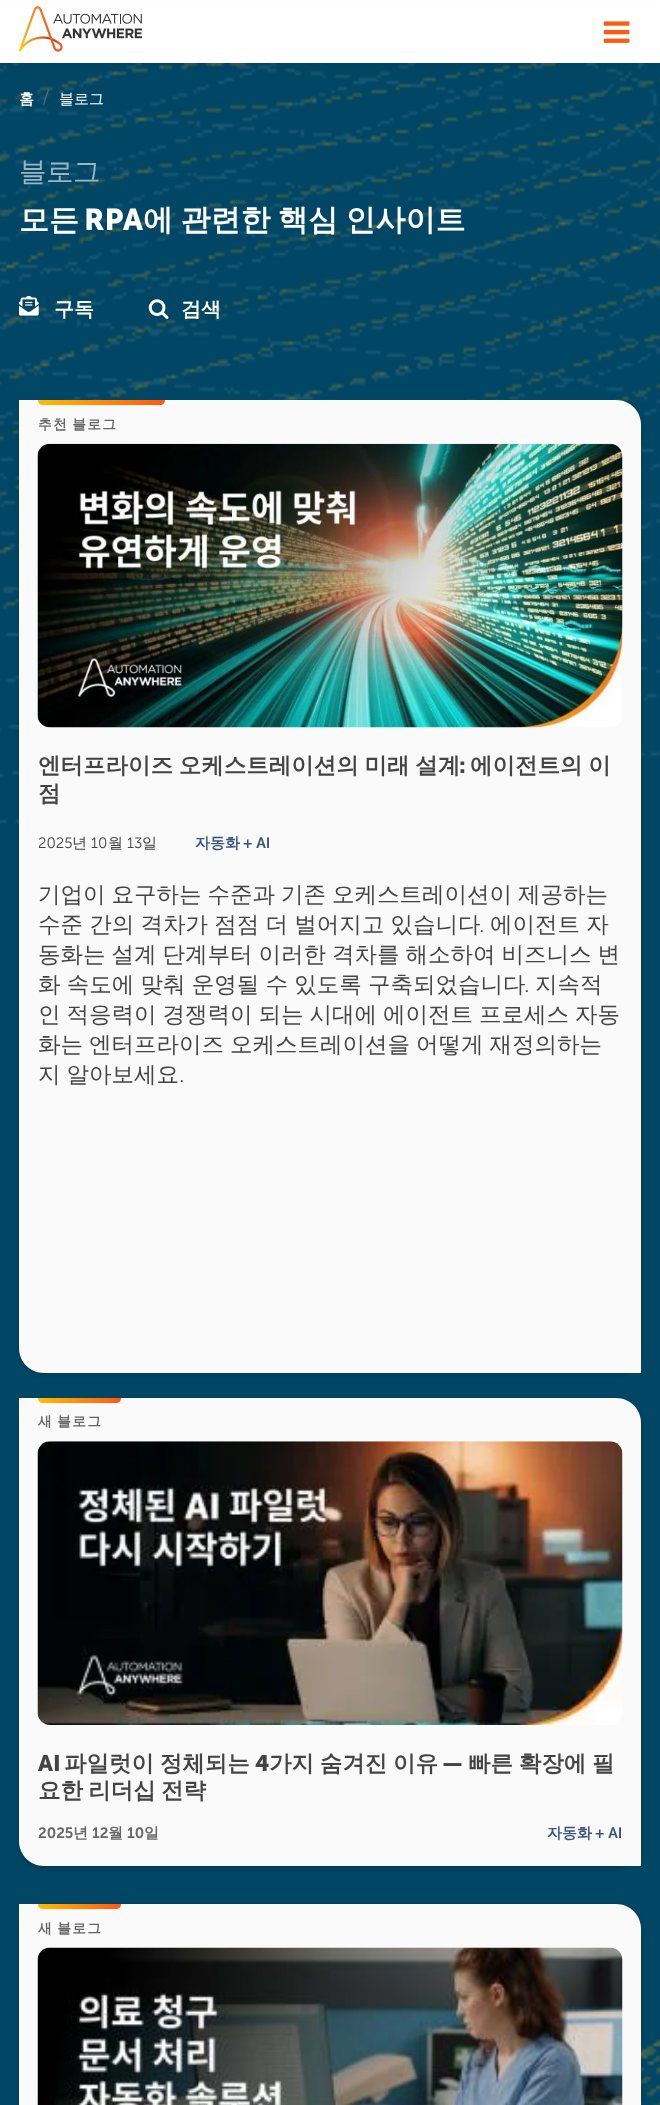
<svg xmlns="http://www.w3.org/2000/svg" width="660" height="2105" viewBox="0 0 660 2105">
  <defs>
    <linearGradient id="g1" gradientUnits="userSpaceOnUse" x1="38" y1="403" x2="165" y2="403"><stop offset="0" stop-color="#ffbc03"/><stop offset="1" stop-color="#ff5a10"/></linearGradient>
    <linearGradient id="g2" gradientUnits="userSpaceOnUse" x1="38" y1="1400" x2="121" y2="1400"><stop offset="0" stop-color="#ffbc03"/><stop offset="1" stop-color="#ff5a10"/></linearGradient>
    <linearGradient id="g3" gradientUnits="userSpaceOnUse" x1="38" y1="1906" x2="121" y2="1906"><stop offset="0" stop-color="#ffbc03"/><stop offset="1" stop-color="#ff5a10"/></linearGradient>
  </defs>
  <rect width="100%" height="100%" fill="#fff"/>
  <image x="0" y="63" width="660" height="2042" href="img/3.png"/>
  <path d="M0 3h660v62H0z" fill="#0000000d" filter="blur(2px)"/>
  <path d="M0 1h660v62H0z" fill="#fff"/>
  <image x="19" y="6" width="124" height="46" href="img/1.png"/>
  <image x="603" y="21" width="27" height="22" href="img/2.png"/>
  <image x="19" y="296" width="20" height="20" href="img/4.png"/>
  <image x="148" y="299" width="21" height="20" href="img/5.png"/>
  <rect x="19" y="403" width="622" height="972" rx="25" fill="#00000026" filter="blur(2px)"/>
  <path d="M19 400H616C630 400 641 411 641 425V1373H44C30 1373 19 1362 19 1348Z" fill="#fafafa"/>
  <path d="M38 400H165C165 403 163 405 160 405H43C40 405 38 403 38 400Z" fill="url(#g1)"/>
  <image x="37" y="443" width="586" height="285" href="img/6.png"/>
  <rect x="19" y="1400" width="622" height="469" rx="25" fill="#00000026" filter="blur(2px)"/>
  <path d="M19 1398H616C630 1398 641 1409 641 1423V1866H44C30 1866 19 1855 19 1841Z" fill="#fafafa"/>
  <path d="M38 1398H121C121 1401 119 1403 116 1403H43C40 1403 38 1401 38 1398Z" fill="url(#g2)"/>
  <image x="37" y="1441" width="586" height="284" href="img/7.png"/>
  <rect x="19" y="1906" width="622" height="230" rx="25" fill="#00000026" filter="blur(2px)"/>
  <path d="M19 1904H616C630 1904 641 1915 641 1929V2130H44C30 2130 19 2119 19 2105Z" fill="#fafafa"/>
  <path d="M38 1904H121C121 1907 119 1909 116 1909H43C40 1909 38 1907 38 1904Z" fill="url(#g3)"/>
  <image x="37" y="1947" width="586" height="158" href="img/8.png"/>
  <text x="19" y="104" font-family="WenQuanYi Zen Hei" font-size="15" font-weight="bold" fill="#fff">홈</text>
  <text x="42" y="104" font-family="'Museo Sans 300'" font-size="20" font-weight="300" fill="#666">/</text>
  <text x="59" y="104" font-family="WenQuanYi Zen Hei" font-size="15" font-weight="500" fill="#fff">블로그</text>
  <text x="19" y="181" font-family="WenQuanYi Zen Hei" font-size="27.5" font-weight="500" letter-spacing="-0.5" fill="#9ab6c1">블로그</text>
  <text x="19" y="230" font-family="WenQuanYi Zen Hei" font-size="30" font-weight="bold" fill="#fff">모든</text>
  <text x="84" y="230" font-family="'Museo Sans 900'" font-size="30" font-weight="bold" fill="#fff">RPA</text>
  <text x="143" y="230" word-spacing="-1.5" font-family="WenQuanYi Zen Hei" font-size="30" font-weight="bold" fill="#fff">에 관련한 핵심 인사이트</text>
  <g font-family="WenQuanYi Zen Hei" font-size="20" font-weight="bold" fill="#fff">
    <text x="54" y="316">구독</text>
    <text x="181" y="316">검색</text>
  </g>
  <text x="38" y="429" word-spacing="-1" font-family="WenQuanYi Zen Hei" font-size="13.75" font-weight="bold" letter-spacing="1.25" fill="#666">추천 블로그</text>
  <text x="38" y="773" word-spacing="-1" font-family="WenQuanYi Zen Hei" font-size="22.5" font-weight="bold" fill="#444">엔터프라이즈 오케스트레이션의 미래 설계</text>
  <text x="459" y="773" font-family="'Museo Sans 900'" font-size="22.5" font-weight="bold" fill="#444">:</text>
  <g font-family="WenQuanYi Zen Hei" font-size="22.5" font-weight="bold" fill="#444">
    <text x="470" y="773" word-spacing="-1">에이전트의 이</text>
    <text x="38" y="801">점</text>
  </g>
  <text x="38" y="848" font-family="'Museo Sans 300'" font-size="15" font-weight="300" fill="#444">2025</text>
  <text x="72" y="848" font-family="WenQuanYi Zen Hei" font-size="15" font-weight="500" fill="#444">년</text>
  <text x="91" y="848" font-family="'Museo Sans 300'" font-size="15" font-weight="300" fill="#444">10</text>
  <text x="108" y="848" font-family="WenQuanYi Zen Hei" font-size="15" font-weight="500" fill="#444">월</text>
  <text x="127" y="848" font-family="'Museo Sans 300'" font-size="15" font-weight="300" fill="#444">13</text>
  <text x="142" y="848" font-family="WenQuanYi Zen Hei" font-size="15" font-weight="500" fill="#444">일</text>
  <text x="195" y="848" font-family="WenQuanYi Zen Hei" font-size="15" font-weight="bold" fill="#355580">자동화</text>
  <text x="243" y="848" font-family="'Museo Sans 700'" font-size="15" font-weight="600" fill="#355580">+ AI</text>
  <g font-family="WenQuanYi Zen Hei" font-size="22.5" font-weight="500" fill="#444">
    <text x="38" y="902" word-spacing="-0.75">기업이 요구하는 수준과 기존 오케스트레이션이 제공하는</text>
    <text x="38" y="932" word-spacing="-0.5">수준 간의 격차가 점점 더 벌어지고 있습니다</text>
  </g>
  <text x="479" y="932" font-family="'Museo Sans 300'" font-size="22.5" font-weight="300" fill="#444">.</text>
  <g font-family="WenQuanYi Zen Hei" font-size="22.5" font-weight="500" fill="#444">
    <text x="490" y="932" word-spacing="-0.5">에이전트 자</text>
    <text x="38" y="962" word-spacing="-0.75">동화는 설계 단계부터 이러한 격차를 해소하여 비즈니스 변</text>
    <text x="38" y="992" word-spacing="-0.5">화 속도에 맞춰 운영될 수 있도록 구축되었습니다</text>
  </g>
  <text x="524" y="992" font-family="'Museo Sans 300'" font-size="22.5" font-weight="300" fill="#444">.</text>
  <g font-family="WenQuanYi Zen Hei" font-size="22.5" font-weight="500" fill="#444">
    <text x="535" y="992">지속적</text>
    <text x="38" y="1022" word-spacing="-0.75">인 적응력이 경쟁력이 되는 시대에 에이전트 프로세스 자동</text>
    <text x="38" y="1052" word-spacing="-0.75">화는 엔터프라이즈 오케스트레이션을 어떻게 재정의하는</text>
    <text x="38" y="1082" word-spacing="-0.75">지 알아보세요</text>
  </g>
  <text x="179" y="1082" font-family="'Museo Sans 300'" font-size="22.5" font-weight="300" fill="#444">.</text>
  <text x="38" y="1426" word-spacing="-1" font-family="WenQuanYi Zen Hei" font-size="13.75" font-weight="bold" letter-spacing="1.25" fill="#666">새 블로그</text>
  <text x="38" y="1771" font-family="'Museo Sans 900'" font-size="22.5" font-weight="bold" fill="#444">AI</text>
  <text x="64" y="1771" word-spacing="-1" font-family="WenQuanYi Zen Hei" font-size="22.5" font-weight="bold" fill="#444">파일럿이 정체되는</text>
  <text x="255" y="1771" font-family="'Museo Sans 900'" font-size="22.5" font-weight="bold" fill="#444">4</text>
  <text x="269" y="1771" word-spacing="-1" font-family="WenQuanYi Zen Hei" font-size="22.5" font-weight="bold" fill="#444">가지 숨겨진 이유</text>
  <text x="442" y="1771" font-family="'Museo Sans 900'" font-size="22.5" font-weight="bold" fill="#444">—</text>
  <g font-family="WenQuanYi Zen Hei" font-size="22.5" font-weight="bold" fill="#444">
    <text x="468" y="1771" word-spacing="-1">빠른 확장에 필</text>
    <text x="38" y="1798" word-spacing="-1.5">요한 리더십 전략</text>
  </g>
  <text x="38" y="1838" font-family="'Museo Sans 700'" font-size="15" font-weight="600" fill="#666">2025</text>
  <text x="73" y="1838" font-family="WenQuanYi Zen Hei" font-size="15" font-weight="bold" fill="#666">년</text>
  <text x="92" y="1838" font-family="'Museo Sans 700'" font-size="15" font-weight="600" fill="#666">12</text>
  <text x="108" y="1838" font-family="WenQuanYi Zen Hei" font-size="15" font-weight="bold" fill="#666">월</text>
  <text x="127" y="1838" font-family="'Museo Sans 700'" font-size="15" font-weight="600" fill="#666">10</text>
  <text x="144" y="1838" font-family="WenQuanYi Zen Hei" font-size="15" font-weight="bold" fill="#666">일</text>
  <text x="547" y="1838" font-family="WenQuanYi Zen Hei" font-size="15" font-weight="bold" fill="#355580">자동화</text>
  <text x="595" y="1838" font-family="'Museo Sans 700'" font-size="15" font-weight="600" fill="#355580">+ AI</text>
  <text x="38" y="1933" word-spacing="-1" font-family="WenQuanYi Zen Hei" font-size="13.75" font-weight="bold" letter-spacing="1.25" fill="#666">새 블로그</text>
</svg>
